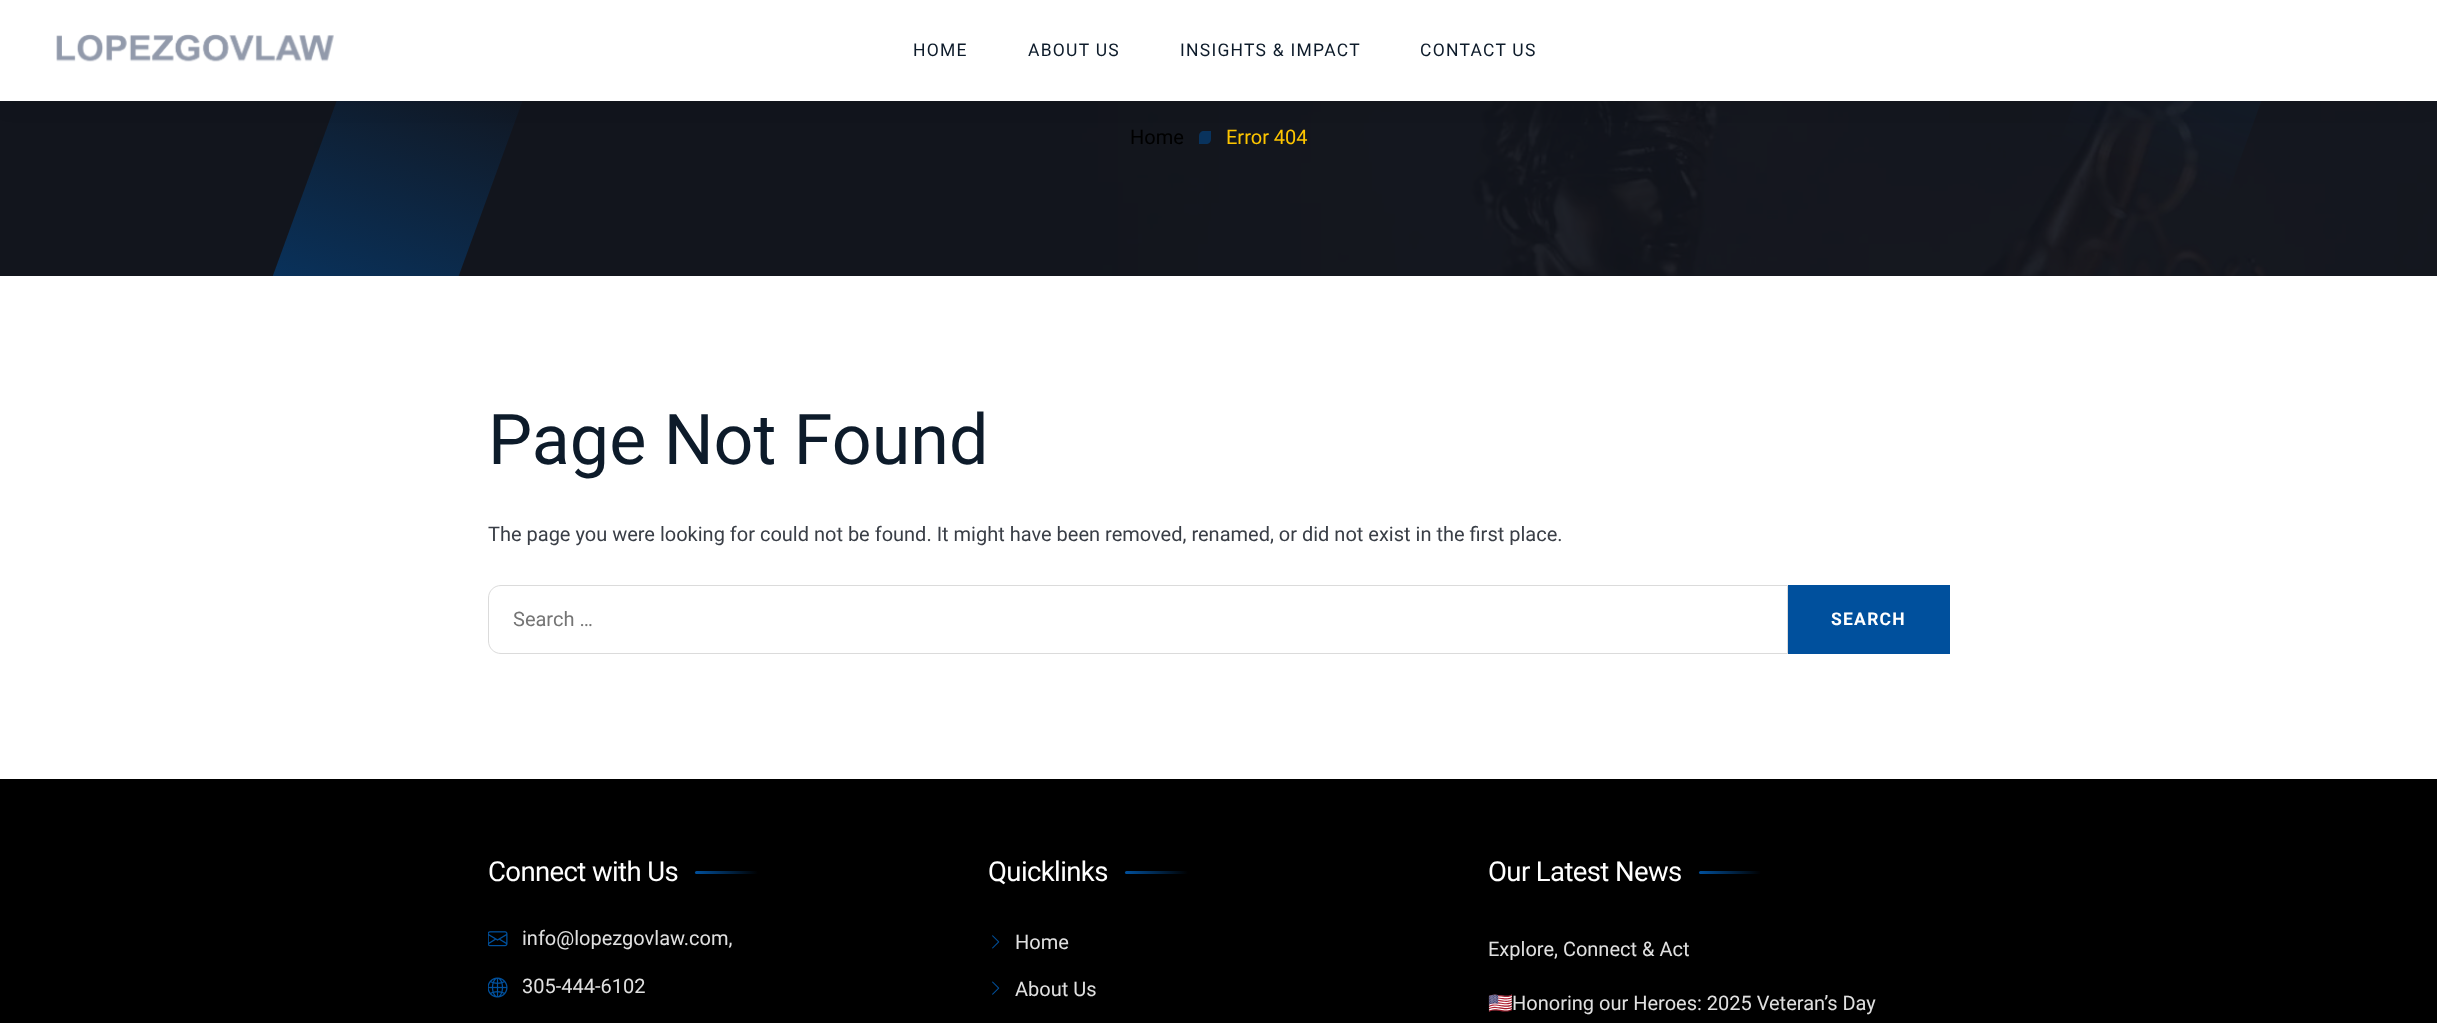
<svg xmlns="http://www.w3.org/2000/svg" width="2437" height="1023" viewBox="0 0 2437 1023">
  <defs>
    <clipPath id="clip1"><path d="M0 0h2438v276H0z"/></clipPath>
    <linearGradient id="g1" gradientUnits="userSpaceOnUse" x1="330" y1="374" x2="450" y2="45"><stop offset="0" stop-color="#07396b"/><stop offset="1" stop-color="#12151d"/></linearGradient>
    <linearGradient id="g2" gradientUnits="userSpaceOnUse" x1="695" y1="873" x2="758" y2="873"><stop offset="0" stop-color="#00509d"/><stop offset="1" stop-color="#000"/></linearGradient>
    <linearGradient id="g3" gradientUnits="userSpaceOnUse" x1="1125" y1="873" x2="1188" y2="873"><stop offset="0" stop-color="#00509d"/><stop offset="1" stop-color="#000"/></linearGradient>
    <linearGradient id="g4" gradientUnits="userSpaceOnUse" x1="1699" y1="873" x2="1761" y2="873"><stop offset="0" stop-color="#00509d"/><stop offset="1" stop-color="#000"/></linearGradient>
    <clipPath id="clip2"><path d="M1488 929h462v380H1488z"/></clipPath>
  </defs>
  <rect width="100%" height="100%" fill="#fff"/>
  <image x="0" y="101" width="2437" height="175" href="img/2.png"/>
  <g clip-path="url(#clip1)">
    <path d="M368 15L532 75L412 404L248 344Z" fill="url(#g1)"/>
  </g>
  <path d="M1204 131H1211V139C1211 142 1209 144 1206 144H1199V136C1199 133 1201 131 1204 131Z" fill="#09335d"/>
  <path d="M1 1h2435v99H1z" fill="#0000001a" filter="blur(12.5px)"/>
  <path d="M0 0h2437v101H0z" fill="#fff"/>
  <image x="56" y="34" width="278" height="28" href="img/1.png"/>
  <path d="M501 585.5H1787.5V653.5H501C494 653.5 488.5 648 488.5 641V598C488.5 591 494 585.5 501 585.5Z" fill="none" stroke="#dbdbdb"/>
  <path d="M1788 585h162v69H1788z" fill="#00509d"/>
  <path d="M0 779h2437v244H0z" fill="#000"/>
  <rect x="695" y="871" width="63" height="3" rx="1.5" fill="url(#g2)"/>
  <image x="488" y="931" width="20" height="16" href="img/3.png"/>
  <image x="488" y="977" width="20" height="21" href="img/4.png"/>
  <rect x="1125" y="871" width="63" height="3" rx="1.5" fill="url(#g3)"/>
  <image x="992" y="935" width="8" height="14" href="img/5.png"/>
  <image x="992" y="981" width="8" height="14" href="img/6.png"/>
  <rect x="1699" y="871" width="62" height="3" rx="1.5" fill="url(#g4)"/>
  <g font-family="Roboto" font-size="17.5" letter-spacing="1.25" fill="#0d1b2a">
    <text x="913" y="56">HOME</text>
    <text x="1028" y="56">ABOUT US</text>
    <text x="1180" y="56">INSIGHTS &amp; IMPACT</text>
    <text x="1420" y="56">CONTACT US</text>
  </g>
  <text x="1130" y="144" font-family="Roboto" font-size="20" fill="#000">Home</text>
  <text x="1226" y="144" font-family="Roboto" font-size="20" fill="#fdc500">Error 404</text>
  <text x="488" y="464" font-family="Roboto" font-size="70" fill="#0d1b2a">Page Not Found</text>
  <text x="488" y="541" font-family="Roboto" font-size="20" fill="#393e46">The page you were looking for could not be found. It might have been removed, renamed, or did not exist in the first place.</text>
  <text x="513" y="626" font-family="Roboto" font-size="20" fill="#757575">Search …</text>
  <text x="1831" y="625" font-family="Roboto" font-size="17.5" font-weight="bold" letter-spacing="1.25" fill="#fff">SEARCH</text>
  <text x="488" y="881" font-family="Roboto" font-size="27.5" letter-spacing="-0.6" fill="#fff">Connect with Us</text>
  <g font-family="Roboto" font-size="20" fill="#e0e0e0">
    <text x="522" y="945">info@lopezgovlaw.com,</text>
    <text x="522" y="993">305-444-6102</text>
  </g>
  <text x="988" y="881" font-family="Roboto" font-size="27.5" letter-spacing="-0.6" fill="#fff">Quicklinks</text>
  <g font-family="Roboto" font-size="20" fill="#e0e0e0">
    <text x="1015" y="949">Home</text>
    <text x="1015" y="996">About Us</text>
  </g>
  <text x="1488" y="881" font-family="Roboto" font-size="27.5" letter-spacing="-0.6" fill="#fff">Our Latest News</text>
  <text x="1488" y="956" font-family="Roboto" font-size="20" fill="#e0e0e0">Explore, Connect &amp; Act</text>
  <g clip-path="url(#clip2)">
    <text x="1488" y="1010" font-family="Noto Color Emoji" font-size="20" fill="#e0e0e0">🇺🇲</text>
  </g>
  <text x="1512" y="1010" font-family="Roboto" font-size="20" fill="#e0e0e0">Honoring our Heroes: 2025 Veteran’s Day</text>
</svg>
